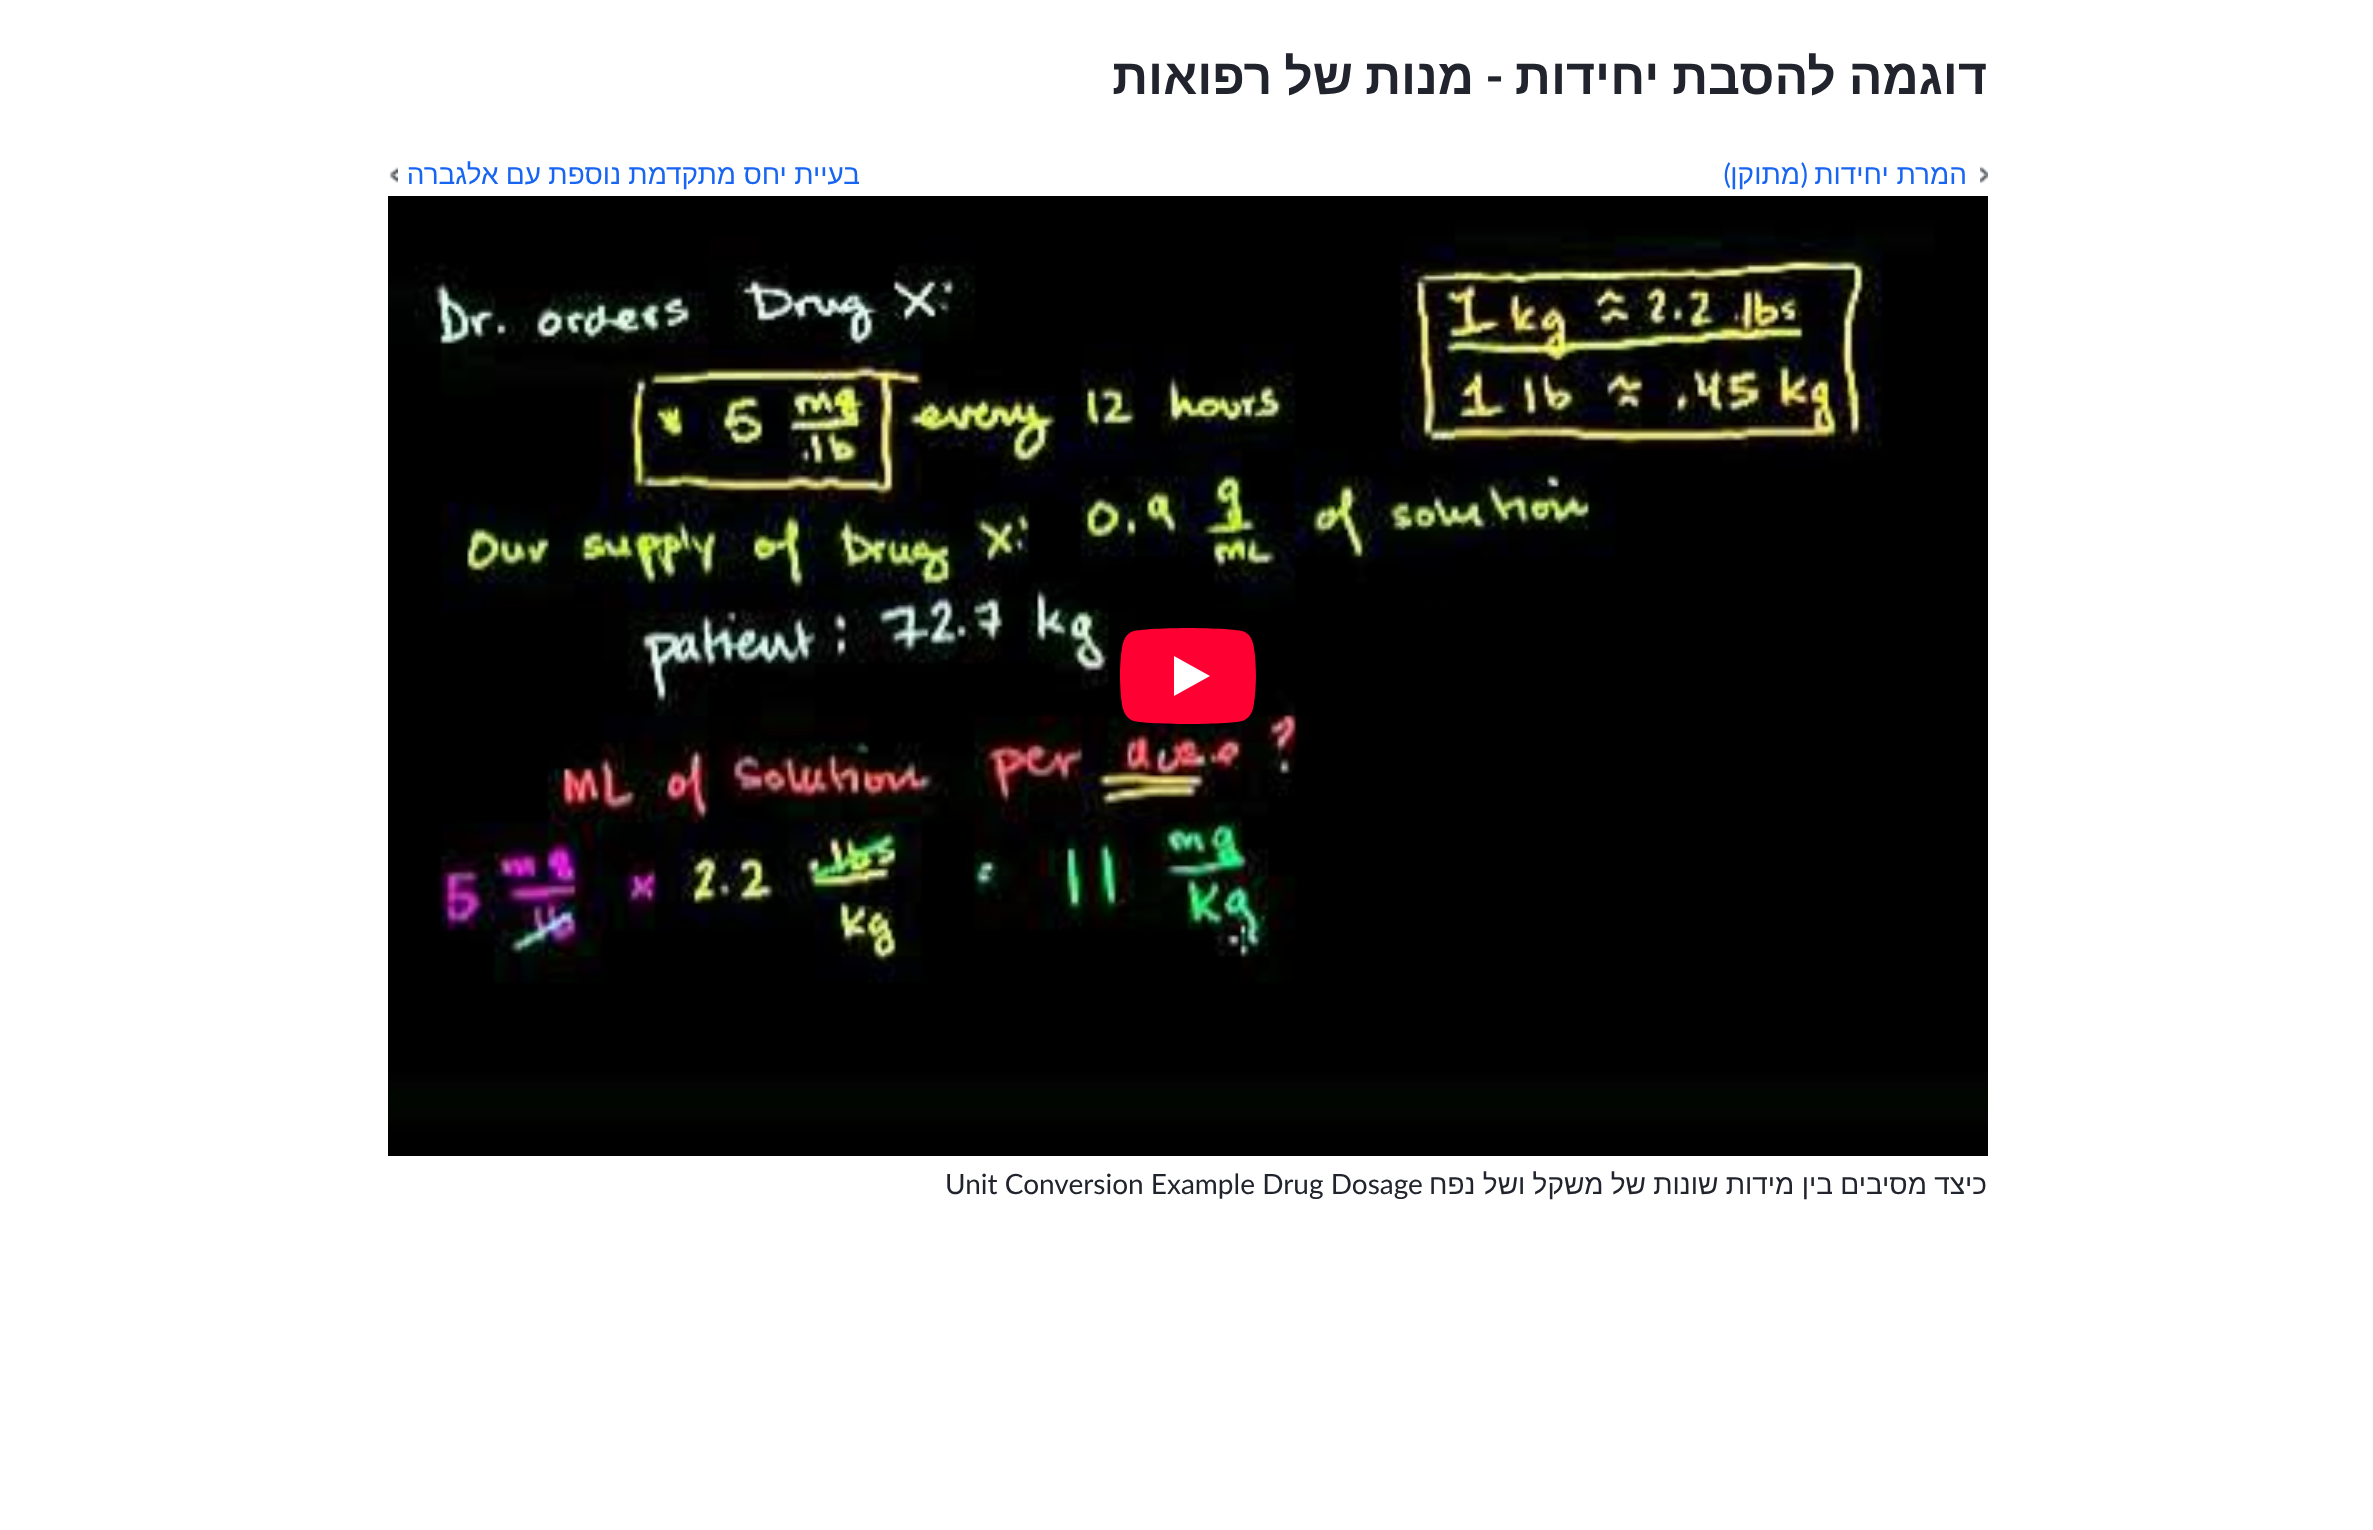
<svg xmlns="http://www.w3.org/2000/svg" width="2373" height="1530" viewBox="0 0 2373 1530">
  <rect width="100%" height="100%" fill="#fff"/>
  <image x="1980" y="166" width="8" height="18" href="img/1.png"/>
  <image x="389" y="167" width="9" height="16" href="img/2.png"/>
  <image x="388" y="196" width="1600" height="960" href="img/3.png"/>
  <text x="1987" y="94" word-spacing="-1" font-family="Liberation Sans" font-size="50" font-weight="bold" direction="rtl" fill="#21242c">דוגמה להסבת יחידות</text>
  <text x="1504" y="94" font-family="Lato" font-size="50" font-weight="bold" direction="rtl" fill="#21242c">-</text>
  <g font-family="Liberation Sans" font-size="50" font-weight="bold" direction="rtl" fill="#21242c">
    <text x="1474" y="94">מנות</text>
    <text x="1353" y="94" word-spacing="-2">של רפואות</text>
  </g>
  <text x="1967" y="184" font-family="Liberation Sans" font-size="28" direction="rtl" fill="#1865f2">המרת יחידות</text>
  <text x="1808" y="184" font-family="Lato" font-size="28" direction="rtl" fill="#1865f2">(</text>
  <text x="1800" y="184" font-family="Liberation Sans" font-size="28" direction="rtl" fill="#1865f2">מתוקן</text>
  <text x="1731" y="184" font-family="Lato" font-size="28" direction="rtl" fill="#1865f2">)</text>
  <text x="860" y="184" word-spacing="-0.5" font-family="Liberation Sans" font-size="28" direction="rtl" fill="#1865f2">בעיית יחס מתקדמת נוספת עם אלגברה</text>
  <text x="1987" y="1194" word-spacing="-0.5" font-family="Liberation Sans" font-size="28" direction="rtl" fill="#21242c">כיצד מסיבים בין מידות שונות של משקל ושל נפח</text>
  <text x="945" y="1194" font-family="Lato" font-size="28" fill="#21242c">Unit Conversion Example Drug Dosage</text>
</svg>
